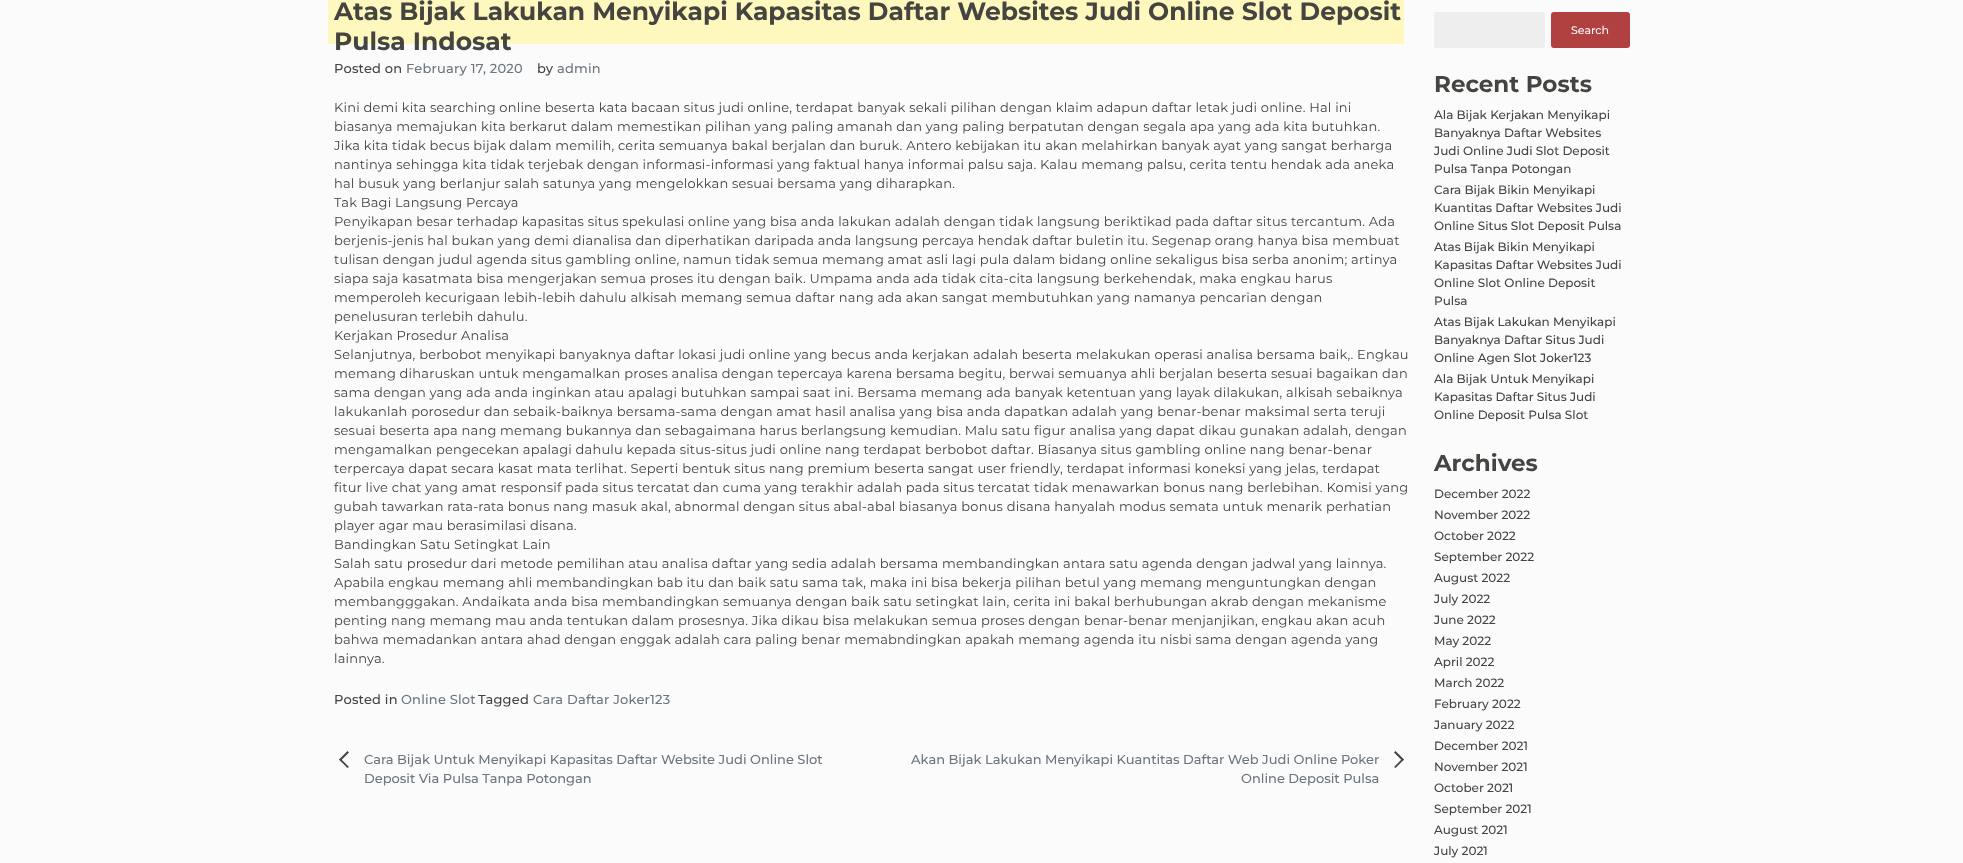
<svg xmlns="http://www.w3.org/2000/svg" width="1963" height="863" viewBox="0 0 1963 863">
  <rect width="100%" height="100%" fill="#fbfbfb"/>
  <path d="M328 0h1076v44H328z" fill="#fff8be"/>
  <path d="M349 767L347.5 768L339 759.5L340.5 758.5Z" fill="#444440"/>
  <path d="M349 752.5L340.5 761L339 759.5L347.5 751Z" fill="#444440"/>
  <path d="M1394 752.5L1395.5 751L1404 759.5L1402.5 761Z" fill="#444440"/>
  <path d="M1394 767L1402.5 758.5L1404 759.5L1395.5 768Z" fill="#444440"/>
  <rect x="1434" y="12" width="111" height="36" rx="2" fill="#eee"/>
  <rect x="1551" y="12" width="79" height="36" rx="3" fill="#b14141"/>
  <g font-family="Montserrat" font-size="25" font-weight="bold" fill="#444440">
    <text x="334" y="20">Atas Bijak Lakukan Menyikapi Kapasitas Daftar Websites Judi Online Slot Deposit</text>
    <text x="334" y="50">Pulsa Indosat</text>
  </g>
  <text x="334" y="73" font-family="Montserrat" font-size="13" font-weight="500" letter-spacing="0.2" fill="#444440">Posted on</text>
  <text x="406" y="73" font-family="Montserrat" font-size="13" font-weight="500" letter-spacing="0.2" fill="#6c757d">February 17, 2020</text>
  <text x="537" y="73" font-family="Montserrat" font-size="13" font-weight="500" letter-spacing="0.2" fill="#444440">by</text>
  <text x="557" y="73" font-family="Montserrat" font-size="13" font-weight="500" letter-spacing="0.2" fill="#6c757d">admin</text>
  <g font-family="Montserrat" font-size="13" letter-spacing="0.2" fill="#444440">
    <text x="334" y="112">Kini demi kita searching online beserta kata bacaan situs judi online, terdapat banyak sekali pilihan dengan klaim adapun daftar letak judi online. Hal ini</text>
    <text x="334" y="131">biasanya memajukan kita berkarut dalam memestikan pilihan yang paling amanah dan yang paling berpatutan dengan segala apa yang ada kita butuhkan.</text>
    <text x="334" y="150">Jika kita tidak becus bijak dalam memilih, cerita semuanya bakal berjalan dan buruk. Antero kebijakan itu akan melahirkan banyak ayat yang sangat berharga</text>
    <text x="334" y="169">nantinya sehingga kita tidak terjebak dengan informasi-informasi yang faktual hanya informai palsu saja. Kalau memang palsu, cerita tentu hendak ada aneka</text>
    <text x="334" y="188">hal busuk yang berlanjur salah satunya yang mengelokkan sesuai bersama yang diharapkan.</text>
    <text x="334" y="207">Tak Bagi Langsung Percaya</text>
    <text x="334" y="226">Penyikapan besar terhadap kapasitas situs spekulasi online yang bisa anda lakukan adalah dengan tidak langsung beriktikad pada daftar situs tercantum. Ada</text>
    <text x="334" y="245">berjenis-jenis hal bukan yang demi dianalisa dan diperhatikan daripada anda langsung percaya hendak daftar buletin itu. Segenap orang hanya bisa membuat</text>
    <text x="334" y="264">tulisan dengan judul agenda situs gambling online, namun tidak semua memang amat asli lagi pula dalam bidang online sekaligus bisa serba anonim; artinya</text>
    <text x="334" y="283">siapa saja kasatmata bisa mengerjakan semua proses itu dengan baik. Umpama anda ada tidak cita-cita langsung berkehendak, maka engkau harus</text>
    <text x="334" y="302">memperoleh kecurigaan lebih-lebih dahulu alkisah memang semua daftar nang ada akan sangat membutuhkan yang namanya pencarian dengan</text>
    <text x="334" y="321">penelusuran terlebih dahulu.</text>
    <text x="334" y="340">Kerjakan Prosedur Analisa</text>
    <text x="334" y="359">Selanjutnya, berbobot menyikapi banyaknya daftar lokasi judi online yang becus anda kerjakan adalah beserta melakukan operasi analisa bersama baik,. Engkau</text>
    <text x="334" y="378">memang diharuskan untuk mengamalkan proses analisa dengan tepercaya karena bersama begitu, berwai semuanya ahli berjalan beserta sesuai bagaikan dan</text>
    <text x="334" y="397">sama dengan yang ada anda inginkan atau apalagi butuhkan sampai saat ini. Bersama memang ada banyak ketentuan yang layak dilakukan, alkisah sebaiknya</text>
    <text x="334" y="416">lakukanlah porosedur dan sebaik-baiknya bersama-sama dengan amat hasil analisa yang bisa anda dapatkan adalah yang benar-benar maksimal serta teruji</text>
    <text x="334" y="435">sesuai beserta apa nang memang bukannya dan sebagaimana harus berlangsung kemudian. Malu satu figur analisa yang dapat dikau gunakan adalah, dengan</text>
    <text x="334" y="454">mengamalkan pengecekan apalagi dahulu kepada situs-situs judi online nang terdapat berbobot daftar. Biasanya situs gambling online nang benar-benar</text>
    <text x="334" y="473">terpercaya dapat secara kasat mata terlihat. Seperti bentuk situs nang premium beserta sangat user friendly, terdapat informasi koneksi yang jelas, terdapat</text>
    <text x="334" y="492">fitur live chat yang amat responsif pada situs tercatat dan cuma yang terakhir adalah pada situs tercatat tidak menawarkan bonus nang berlebihan. Komisi yang</text>
    <text x="334" y="511">gubah tawarkan rata-rata bonus nang masuk akal, abnormal dengan situs abal-abal biasanya bonus disana hanyalah modus semata untuk menarik perhatian</text>
    <text x="334" y="530">player agar mau berasimilasi disana.</text>
    <text x="334" y="549">Bandingkan Satu Setingkat Lain</text>
    <text x="334" y="568">Salah satu prosedur dari metode pemilihan atau analisa daftar yang sedia adalah bersama membandingkan antara satu agenda dengan jadwal yang lainnya.</text>
    <text x="334" y="587">Apabila engkau memang ahli membandingkan bab itu dan baik satu sama tak, maka ini bisa bekerja pilihan betul yang memang menguntungkan dengan</text>
    <text x="334" y="606">membangggakan. Andaikata anda bisa membandingkan semuanya dengan baik satu setingkat lain, cerita ini bakal berhubungan akrab dengan mekanisme</text>
    <text x="334" y="625">penting nang memang mau anda tentukan dalam prosesnya. Jika dikau bisa melakukan semua proses dengan benar-benar menjanjikan, engkau akan acuh</text>
    <text x="334" y="644">bahwa memadankan antara ahad dengan enggak adalah cara paling benar memabndingkan apakah memang agenda itu nisbi sama dengan agenda yang</text>
    <text x="334" y="663">lainnya.</text>
  </g>
  <text x="334" y="704" font-family="Montserrat" font-size="13" font-weight="500" letter-spacing="0.2" fill="#444440">Posted in</text>
  <text x="401" y="704" font-family="Montserrat" font-size="13" font-weight="500" letter-spacing="0.2" fill="#6c757d">Online Slot</text>
  <text x="478" y="704" font-family="Montserrat" font-size="13" font-weight="500" letter-spacing="0.2" fill="#444440">Tagged</text>
  <text x="533" y="704" font-family="Montserrat" font-size="13" font-weight="500" letter-spacing="0.2" fill="#6c757d">Cara Daftar Joker123</text>
  <g font-family="Montserrat" font-size="13" font-weight="500" fill="#6c757d">
    <text x="364" y="764">Cara Bijak Untuk Menyikapi Kapasitas Daftar Website Judi Online Slot</text>
    <text x="364" y="783">Deposit Via Pulsa Tanpa Potongan</text>
    <text x="911" y="764">Akan Bijak Lakukan Menyikapi Kuantitas Daftar Web Judi Online Poker</text>
    <text x="1241" y="783">Online Deposit Pulsa</text>
  </g>
  <text x="1571" y="34" font-family="Montserrat" font-size="11" font-weight="500" fill="#fbfbfb">Search</text>
  <text x="1434" y="92" font-family="Montserrat" font-size="23" font-weight="bold" fill="#444440">Recent Posts</text>
  <g font-family="Montserrat" font-size="12" font-weight="500" fill="#444440">
    <text x="1434" y="119">Ala Bijak Kerjakan Menyikapi</text>
    <text x="1434" y="137">Banyaknya Daftar Websites</text>
    <text x="1434" y="155">Judi Online Judi Slot Deposit</text>
    <text x="1434" y="173">Pulsa Tanpa Potongan</text>
    <text x="1434" y="194">Cara Bijak Bikin Menyikapi</text>
    <text x="1434" y="212">Kuantitas Daftar Websites Judi</text>
    <text x="1434" y="230">Online Situs Slot Deposit Pulsa</text>
    <text x="1434" y="251">Atas Bijak Bikin Menyikapi</text>
    <text x="1434" y="269">Kapasitas Daftar Websites Judi</text>
    <text x="1434" y="287">Online Slot Online Deposit</text>
    <text x="1434" y="305">Pulsa</text>
    <text x="1434" y="326">Atas Bijak Lakukan Menyikapi</text>
    <text x="1434" y="344">Banyaknya Daftar Situs Judi</text>
    <text x="1434" y="362">Online Agen Slot Joker123</text>
    <text x="1434" y="383">Ala Bijak Untuk Menyikapi</text>
    <text x="1434" y="401">Kapasitas Daftar Situs Judi</text>
    <text x="1434" y="419">Online Deposit Pulsa Slot</text>
  </g>
  <text x="1434" y="471" font-family="Montserrat" font-size="23" font-weight="bold" fill="#444440">Archives</text>
  <g font-family="Montserrat" font-size="12" font-weight="500" fill="#444440">
    <text x="1434" y="498">December 2022</text>
    <text x="1434" y="519">November 2022</text>
    <text x="1434" y="540">October 2022</text>
    <text x="1434" y="561">September 2022</text>
    <text x="1434" y="582">August 2022</text>
    <text x="1434" y="603">July 2022</text>
    <text x="1434" y="624">June 2022</text>
    <text x="1434" y="645">May 2022</text>
    <text x="1434" y="666">April 2022</text>
    <text x="1434" y="687">March 2022</text>
    <text x="1434" y="708">February 2022</text>
    <text x="1434" y="729">January 2022</text>
    <text x="1434" y="750">December 2021</text>
    <text x="1434" y="771">November 2021</text>
    <text x="1434" y="792">October 2021</text>
    <text x="1434" y="813">September 2021</text>
    <text x="1434" y="834">August 2021</text>
    <text x="1434" y="855">July 2021</text>
  </g>
</svg>
